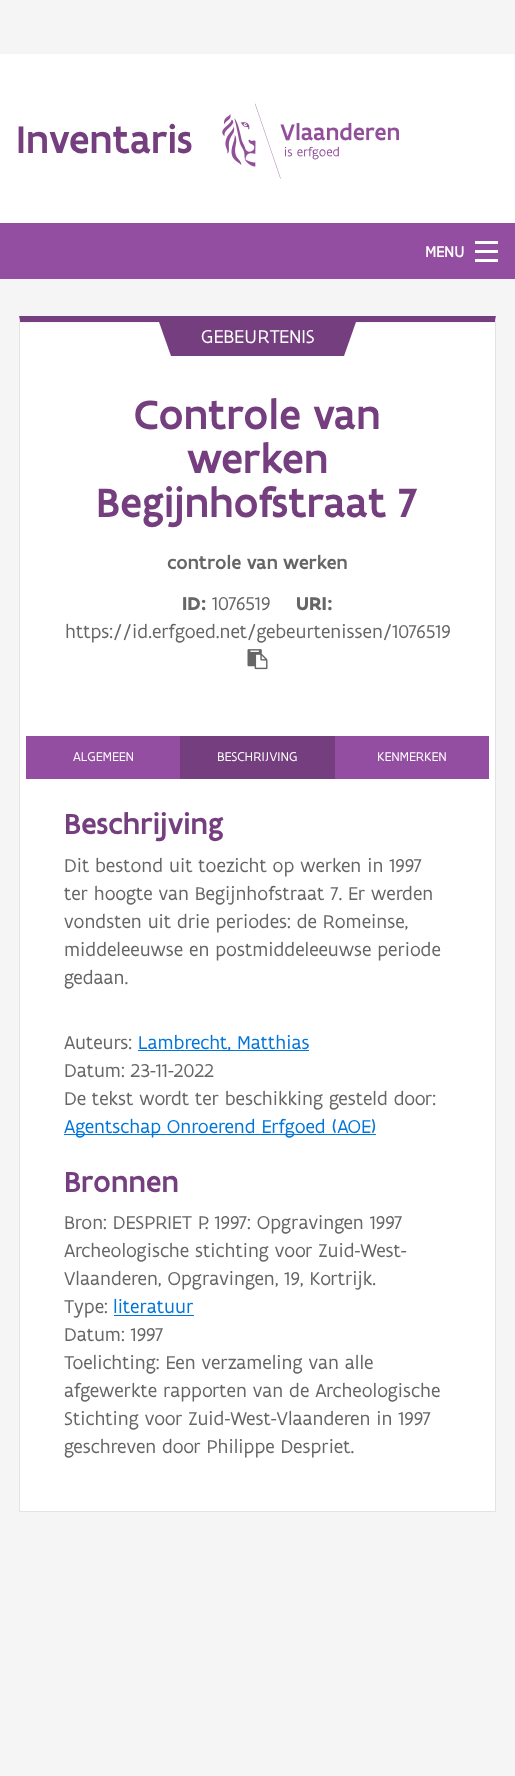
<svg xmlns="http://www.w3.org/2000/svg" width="515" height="1776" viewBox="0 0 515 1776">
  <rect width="100%" height="100%" fill="#f5f5f5"/>
  <path d="M0 54h515v169H0z" fill="#fff"/>
  <image x="222" y="103" width="177" height="76" href="img/1.png"/>
  <path d="M0 223h515v56H0z" fill="#944ea1"/>
  <path d="M475 259h23v3H475z" fill="#fff"/>
  <path d="M475 250h23v3H475z" fill="#fff"/>
  <path d="M475 241h23v3H475z" fill="#fff"/>
  <path d="M20 323h475v1188H20z" fill="#fff"/>
  <path d="M19 316H496L495 322H20Z" fill="#753f7f"/>
  <path d="M496 316V1512L495 1511V322Z" fill="#e3e3e3"/>
  <path d="M19 1511h477v1H19z" fill="#e3e3e3"/>
  <path d="M19 1512V316L20 322V1511Z" fill="#e3e3e3"/>
  <path d="M159 322H313L325 356H171Z" fill="#753f7f"/>
  <path d="M202 322H356L344 356H190Z" fill="#753f7f"/>
  <image x="247" y="649" width="21" height="21" href="img/2.png"/>
  <path d="M26 736h154v43H26z" fill="#944ea1"/>
  <path d="M180 736h155v43H180z" fill="#753f7f"/>
  <path d="M335 736h154v43H335z" fill="#944ea1"/>
  <path d="M138 1050h171v1H138z" fill="#0075db"/>
  <path d="M64 1134h312v1H64z" fill="#0075db"/>
  <path d="M114 1315h80v1H114z" fill="#0075db"/>
  <text x="16" y="153" font-family="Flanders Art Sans" font-size="41.25" font-weight="500" fill="#753f7f">Inventaris</text>
  <text x="425" y="257" font-family="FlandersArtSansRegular" font-size="16" font-weight="bold" fill="#fff">MENU</text>
  <text x="201" y="343" font-family="FlandersArtSansRegular" font-size="20" fill="#fff">GEBEURTENIS</text>
  <g font-family="Flanders Art Sans" font-size="43.75" font-weight="500" fill="#753f7f">
    <text x="134" y="429">Controle van</text>
    <text x="187" y="473">werken</text>
    <text x="96" y="517">Begijnhofstraat 7</text>
  </g>
  <text x="167" y="569" font-family="Flanders Art Sans" font-size="20" font-weight="500" fill="#666">controle van werken</text>
  <text x="182" y="610" font-family="Flanders Art Sans" font-size="20" font-weight="bold" fill="#666">ID:</text>
  <text x="212" y="610" font-family="FlandersArtSansRegular" font-size="20" fill="#666">1076519</text>
  <text x="296" y="610" font-family="Flanders Art Sans" font-size="20" font-weight="bold" fill="#666">URI:</text>
  <text x="65" y="638" font-family="FlandersArtSansRegular" font-size="20" fill="#666">https://id.erfgoed.net/gebeurtenissen/1076519</text>
  <g font-family="FlandersArtSansRegular" font-size="13.75" fill="#fff">
    <text x="73" y="761">ALGEMEEN</text>
    <text x="217" y="761">BESCHRIJVING</text>
    <text x="377" y="761">KENMERKEN</text>
  </g>
  <text x="64" y="834" font-family="Flanders Art Sans" font-size="31.25" font-weight="500" fill="#753f7f">Beschrijving</text>
  <g font-family="FlandersArtSansRegular" font-size="20" fill="#666">
    <text x="64" y="872">Dit bestond uit toezicht op werken in 1997</text>
    <text x="64" y="900">ter hoogte van Begijnhofstraat 7. Er werden</text>
    <text x="64" y="928">vondsten uit drie periodes: de Romeinse,</text>
    <text x="64" y="956">middeleeuwse en postmiddeleeuwse periode</text>
    <text x="64" y="984">gedaan.</text>
    <text x="64" y="1049">Auteurs:</text>
  </g>
  <text x="138" y="1049" font-family="FlandersArtSansRegular" font-size="20" fill="#0075db">Lambrecht, Matthias</text>
  <g font-family="FlandersArtSansRegular" font-size="20" fill="#666">
    <text x="64" y="1077">Datum: 23-11-2022</text>
    <text x="64" y="1105">De tekst wordt ter beschikking gesteld door:</text>
  </g>
  <text x="64" y="1133" font-family="FlandersArtSansRegular" font-size="20" fill="#0075db">Agentschap Onroerend Erfgoed (AOE)</text>
  <text x="64" y="1192" font-family="Flanders Art Sans" font-size="31.25" font-weight="500" fill="#753f7f">Bronnen</text>
  <g font-family="FlandersArtSansRegular" font-size="20" fill="#666">
    <text x="64" y="1229">Bron: DESPRIET P. 1997: Opgravingen 1997</text>
    <text x="64" y="1257">Archeologische stichting voor Zuid-West-</text>
    <text x="64" y="1285">Vlaanderen, Opgravingen, 19, Kortrijk.</text>
    <text x="64" y="1313">Type:</text>
  </g>
  <text x="113" y="1313" font-family="FlandersArtSansRegular" font-size="20" fill="#0075db">literatuur</text>
  <g font-family="FlandersArtSansRegular" font-size="20" fill="#666">
    <text x="64" y="1341">Datum: 1997</text>
    <text x="64" y="1369">Toelichting: Een verzameling van alle</text>
    <text x="64" y="1397">afgewerkte rapporten van de Archeologische</text>
    <text x="64" y="1425">Stichting voor Zuid-West-Vlaanderen in 1997</text>
    <text x="64" y="1453">geschreven door Philippe Despriet.</text>
  </g>
</svg>
